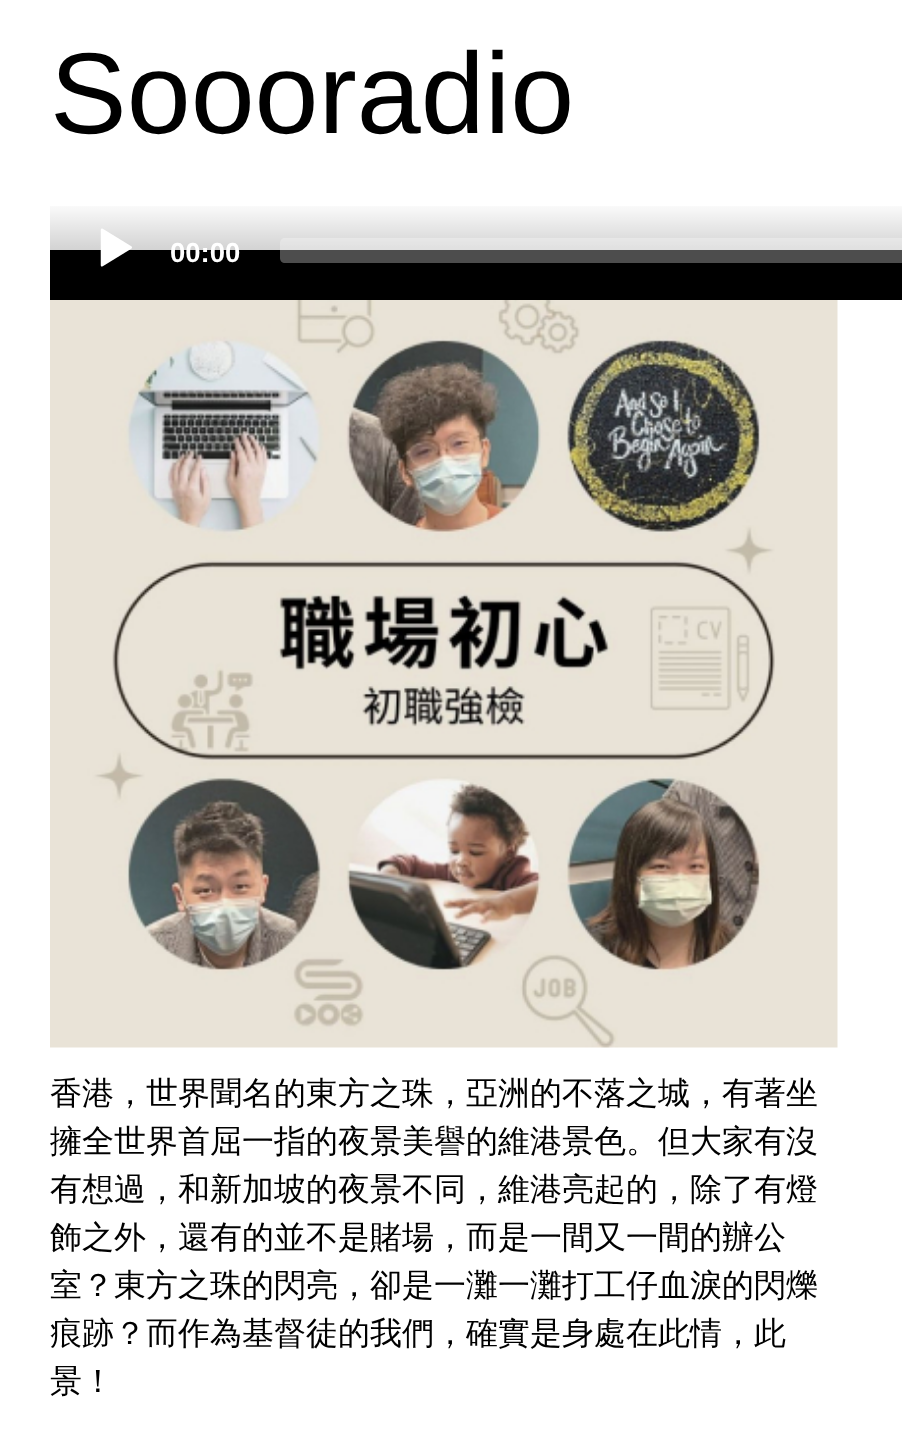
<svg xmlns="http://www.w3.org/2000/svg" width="902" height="1454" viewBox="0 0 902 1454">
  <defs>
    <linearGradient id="g1" gradientUnits="userSpaceOnUse" x1="675" y1="200" x2="675" y2="300"><stop offset="0" stop-color="#000" stop-opacity="0"/><stop offset="1" stop-color="#000" stop-opacity="0.35"/></linearGradient>
  </defs>
  <rect width="100%" height="100%" fill="#fff"/>
  <path d="M50 250h852v50H50z" fill="#000"/>
  <path d="M50 206h852v44H50z" fill="url(#g1)"/>
  <image x="100" y="228" width="32" height="39" href="img/1.png"/>
  <path d="M285 238H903V263H285C282 263 280 261 280 258V243C280 240 282 238 285 238Z" fill="#ffffff4d"/>
  <image x="50" y="300" width="788" height="748" href="img/2.png"/>
  <text x="50" y="133" font-family="Liberation Sans" font-size="115" fill="#000">Soooradio</text>
  <text x="170" y="262" font-family="Liberation Sans" font-size="27.5" font-weight="bold" fill="#fff">00:00</text>
  <g font-family="WenQuanYi Zen Hei" font-size="32" font-weight="500" fill="#000">
    <text x="50" y="1104">香港，世界聞名的東方之珠，亞洲的不落之城，有著坐</text>
    <text x="50" y="1152">擁全世界首屈一指的夜景美譽的維港景色。但大家有沒</text>
    <text x="50" y="1200">有想過，和新加坡的夜景不同，維港亮起的，除了有燈</text>
    <text x="50" y="1248">飾之外，還有的並不是賭場，而是一間又一間的辦公</text>
    <text x="50" y="1296">室？東方之珠的閃亮，卻是一灘一灘打工仔血淚的閃爍</text>
    <text x="50" y="1344">痕跡？而作為基督徒的我們，確實是身處在此情，此</text>
    <text x="50" y="1392">景！</text>
  </g>
</svg>
